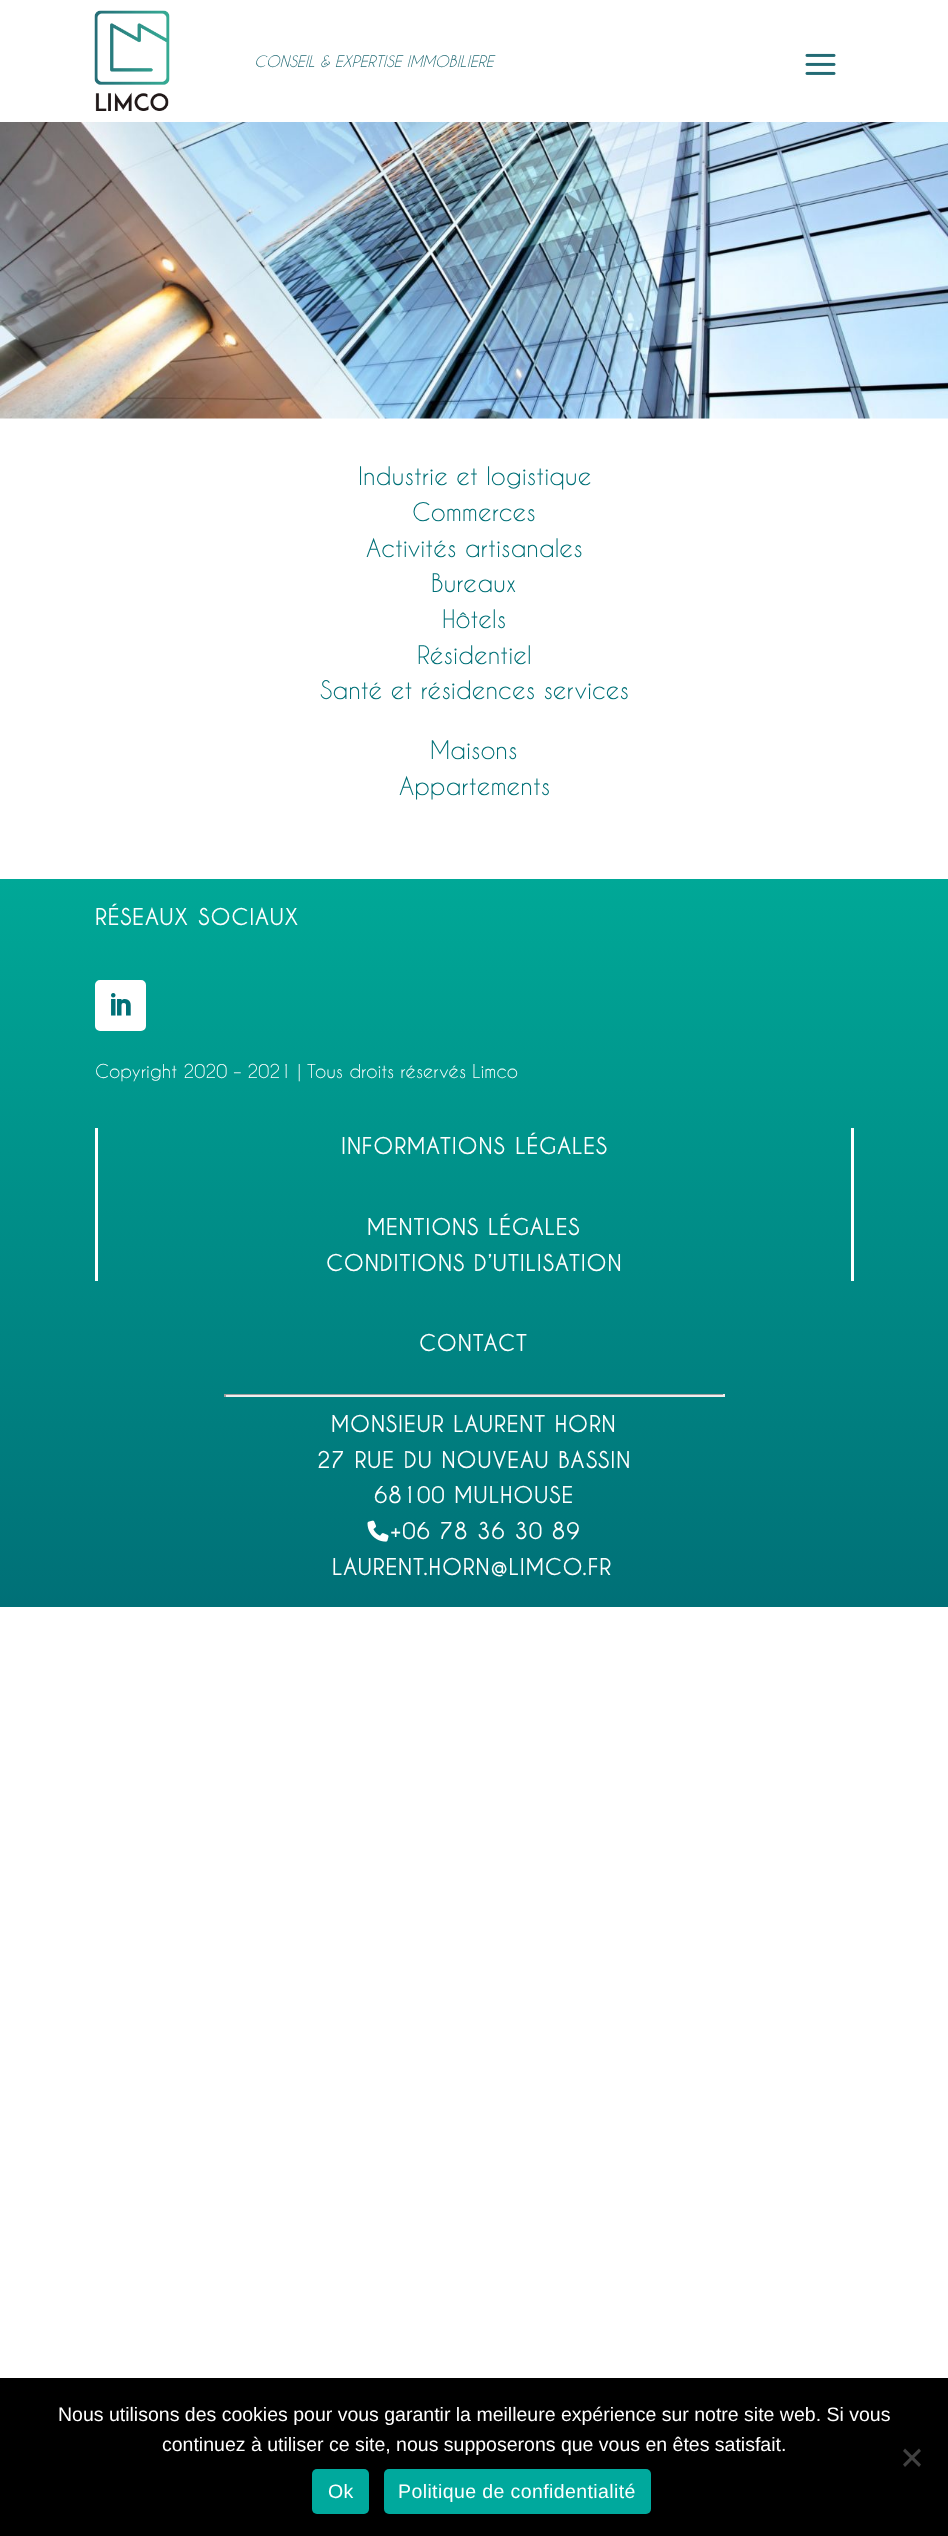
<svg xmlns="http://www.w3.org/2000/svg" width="948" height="2536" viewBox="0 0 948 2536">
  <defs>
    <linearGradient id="g1" gradientUnits="userSpaceOnUse" x1="474" y1="879" x2="474" y2="1607"><stop offset="0" stop-color="#00a897"/><stop offset="1" stop-color="#007077"/></linearGradient>
  </defs>
  <rect width="100%" height="100%" fill="#fff"/>
  <image x="94" y="10" width="76" height="101" href="img/1.png"/>
  <image x="805" y="53" width="31" height="22" href="img/2.png"/>
  <image x="0" y="122" width="948" height="297" href="img/3.png"/>
  <path d="M0 879h948v728H0z" fill="url(#g1)"/>
  <rect x="96" y="981" width="49" height="49" rx="4" fill="#fff" stroke="#fff" stroke-width="2"/>
  <image x="111" y="993" width="20" height="23" href="img/4.png"/>
  <path d="M851 1128h3v153H851z" fill="#fff"/>
  <path d="M95 1128h3v153H95z" fill="#fff"/>
  <path d="M224 1394h501v1H224z" fill="#9f9f9f"/>
  <path d="M723 1394h2v3H723z" fill="#eee"/>
  <path d="M224 1395h501v2H224z" fill="#eee"/>
  <path d="M224 1394h2v3H224z" fill="#9f9f9f"/>
  <image x="367" y="1520" width="22" height="22" href="img/5.png"/>
  <path d="M0 2378h948v158H0z" fill="#000"/>
  <path d="M919 2448.5L921 2451L905 2467L903 2464.5Z" fill="#404040"/>
  <path d="M903 2451L905 2448.5L921 2464.5L919 2467Z" fill="#404040"/>
  <rect x="312" y="2469" width="57" height="45" rx="5" fill="#00a99d"/>
  <rect x="384" y="2469" width="267" height="45" rx="5" fill="#00a99d"/>
  <text x="254" y="67" font-family="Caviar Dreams" font-size="15" font-style="italic" fill="#236b75">CONSEIL &amp; EXPERTISE IMMOBILIERE</text>
  <g font-family="Caviar Dreams" font-size="24" fill="#007077">
    <text x="358" y="485">Industrie et logistique</text>
    <text x="412" y="521">Commerces</text>
    <text x="366" y="557">Activités artisanales</text>
    <text x="431" y="592">Bureaux</text>
    <text x="442" y="628">Hôtels</text>
    <text x="417" y="664">Résidentiel</text>
    <text x="320" y="699">Santé et résidences services</text>
    <text x="430" y="759">Maisons</text>
    <text x="399" y="795">Appartements</text>
  </g>
  <text x="95" y="925" word-spacing="1" font-family="Caviar Dreams" font-size="21" font-weight="bold" letter-spacing="1.5" fill="#fff">RÉSEAUX SOCIAUX</text>
  <text x="95" y="1078" font-family="Caviar Dreams" font-size="18" fill="#fff">Copyright 2020 – 2021 | Tous droits réservés Limco</text>
  <g font-family="Caviar Dreams" font-size="21" font-weight="bold" letter-spacing="1.5" fill="#fff">
    <text x="341" y="1154" word-spacing="1">INFORMATIONS LÉGALES</text>
    <text x="367" y="1235">MENTIONS LÉGALES</text>
    <text x="326" y="1271">CONDITIONS D’UTILISATION</text>
    <text x="419" y="1351">CONTACT</text>
    <text x="331" y="1432">MONSIEUR LAURENT HORN</text>
    <text x="317" y="1468">27 RUE DU NOUVEAU BASSIN</text>
    <text x="374" y="1503">68100 MULHOUSE</text>
    <text x="390" y="1539">+06 78 36 30 89</text>
    <text x="332" y="1575">LAURENT.HORN@LIMCO.FR</text>
  </g>
  <g font-family="Liberation Sans" font-size="19.5" fill="#fff">
    <text x="58" y="2421">Nous utilisons des cookies pour vous garantir la meilleure expérience sur notre site web. Si vous</text>
    <text x="162" y="2451">continuez à utiliser ce site, nous supposerons que vous en êtes satisfait.</text>
  </g>
  <g font-family="Liberation Sans" font-size="19.5" letter-spacing="0.4" fill="#fff">
    <text x="328" y="2498">Ok</text>
    <text x="398" y="2498">Politique de confidentialité</text>
  </g>
</svg>
